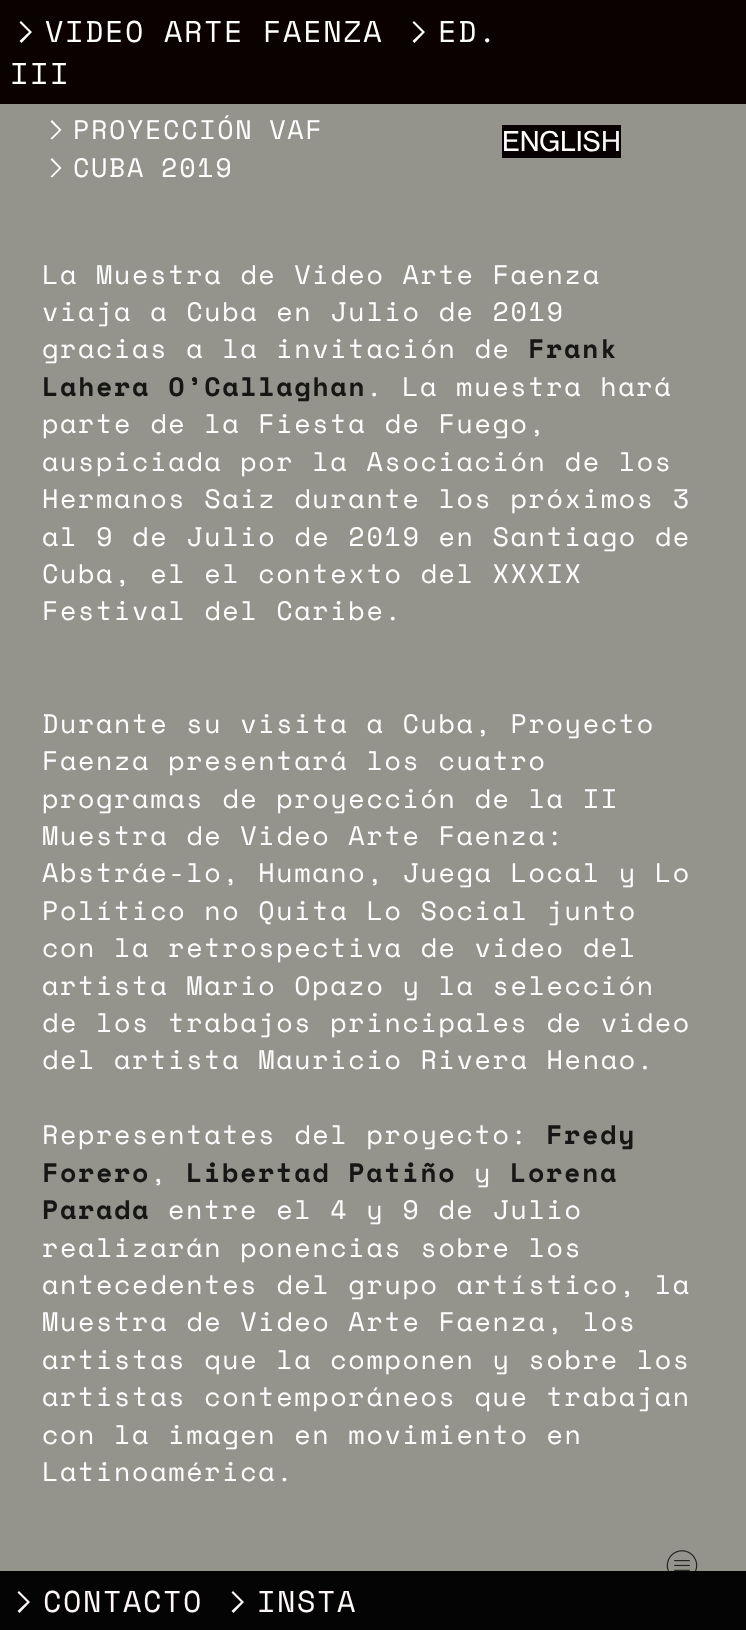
<svg xmlns="http://www.w3.org/2000/svg" width="746" height="1630" viewBox="0 0 746 1630">
  <rect width="100%" height="100%" fill="#94948c"/>
  <path d="M0 0h746v104H0z" fill="#0b0101"/>
  <path d="M32 32L21 21L19.5 22.5L29 32L19.5 41L21.5 43Z" fill="#fff"/>
  <path d="M425 32L414 21L412.5 22.5L422 32L412.5 41L414.5 43Z" fill="#fff"/>
  <path d="M502 125h119v33H502z" fill="#080101"/>
  <path d="M61.5 130L52 120L50.5 121.5L59 130L50.5 138.5L52 139.5Z" fill="#fff"/>
  <path d="M61.5 168L52 158L50.5 159.5L59 168L50.5 176.5L52 177.5Z" fill="#fff"/>
  <path d="M0 1571h746v59H0z" fill="#040404"/>
  <path d="M30 1602L19 1591L17.5 1592.5L27 1602L17.5 1611L19.5 1613Z" fill="#fef8f8"/>
  <path d="M244 1602L233 1591L231.5 1592.5L241 1602L231.5 1611L233.5 1613Z" fill="#fef8f8"/>
  <image x="666" y="1550" width="32" height="21" href="img/1.png"/>
  <g font-family="Space Mono" font-size="30" letter-spacing="1.65" fill="#fff">
    <text x="45" y="42" word-spacing="-1">VIDEO ARTE FAENZA</text>
    <text x="438" y="42">ED.</text>
    <text x="10" y="84">III</text>
  </g>
  <g font-family="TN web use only" font-size="26.75" fill="#fff">
    <text x="502" y="151">EN</text>
    <text x="539" y="151">GLIS</text>
  </g>
  <text x="601" y="151" font-family="TN web use only" font-size="26.75" fill="#f6f4f4">H</text>
  <g font-family="Space Mono" font-size="26.75" letter-spacing="1.65" fill="#fff">
    <text x="73" y="139" word-spacing="-2">PROYECCIÓN VAF</text>
    <text x="73" y="177" word-spacing="-2">CUBA 2019</text>
    <text x="42" y="284">La Muestra de Video Arte Faenza</text>
    <text x="42" y="321">viaja a Cuba en Julio de 2019</text>
    <text x="42" y="358">gracias a la invitación de</text>
  </g>
  <g font-family="Space Mono" font-size="26.75" font-weight="bold" letter-spacing="1.65" fill="#161615">
    <text x="528" y="358">Frank</text>
    <text x="42" y="396">Lahera O’Callaghan</text>
  </g>
  <g font-family="Space Mono" font-size="26.75" letter-spacing="1.65" fill="#fff">
    <text x="366" y="396">. La muestra hará</text>
    <text x="42" y="433">parte de la Fiesta de Fuego,</text>
    <text x="42" y="471">auspiciada por la Asociación de los</text>
    <text x="42" y="508">Hermanos Saiz durante los próximos 3</text>
    <text x="42" y="546">al 9 de Julio de 2019 en Santiago de</text>
    <text x="42" y="583">Cuba, el el contexto del XXXIX</text>
    <text x="42" y="620">Festival del Caribe.</text>
    <text x="42" y="733">Durante su visita a Cuba, Proyecto</text>
    <text x="42" y="770">Faenza presentará los cuatro</text>
    <text x="42" y="808">programas de proyección de la II</text>
    <text x="42" y="845">Muestra de Video Arte Faenza:</text>
    <text x="42" y="882">Abstráe-lo, Humano, Juega Local y Lo</text>
    <text x="42" y="920">Político no Quita Lo Social junto</text>
    <text x="42" y="957">con la retrospectiva de video del</text>
    <text x="42" y="995">artista Mario Opazo y la selección</text>
    <text x="42" y="1032">de los trabajos principales de video</text>
    <text x="42" y="1069">del artista Mauricio Rivera Henao.</text>
    <text x="42" y="1144">Representates del proyecto:</text>
  </g>
  <g font-family="Space Mono" font-size="26.75" font-weight="bold" letter-spacing="1.65" fill="#161615">
    <text x="546" y="1144">Fredy</text>
    <text x="42" y="1182">Forero</text>
  </g>
  <text x="150" y="1182" font-family="Space Mono" font-size="26.75" letter-spacing="1.65" fill="#fff">,</text>
  <text x="186" y="1182" font-family="Space Mono" font-size="26.75" font-weight="bold" letter-spacing="1.65" fill="#161615">Libertad Patiño</text>
  <text x="474" y="1182" font-family="Space Mono" font-size="26.75" letter-spacing="1.65" fill="#fff">y</text>
  <g font-family="Space Mono" font-size="26.75" font-weight="bold" letter-spacing="1.65" fill="#161615">
    <text x="510" y="1182">Lorena</text>
    <text x="42" y="1219">Parada</text>
  </g>
  <g font-family="Space Mono" font-size="26.75" letter-spacing="1.65" fill="#fff">
    <text x="168" y="1219">entre el 4 y 9 de Julio</text>
    <text x="42" y="1257">realizarán ponencias sobre los</text>
    <text x="42" y="1294">antecedentes del grupo artístico, la</text>
    <text x="42" y="1331">Muestra de Video Arte Faenza, los</text>
    <text x="42" y="1369">artistas que la componen y sobre los</text>
    <text x="42" y="1406">artistas contemporáneos que trabajan</text>
    <text x="42" y="1444">con la imagen en movimiento en</text>
    <text x="42" y="1481">Latinoamérica.</text>
  </g>
  <g font-family="Space Mono" font-size="30" letter-spacing="1.65" fill="#fef8f8">
    <text x="43" y="1612">CONTACTO</text>
    <text x="257" y="1612">INSTA</text>
  </g>
</svg>
